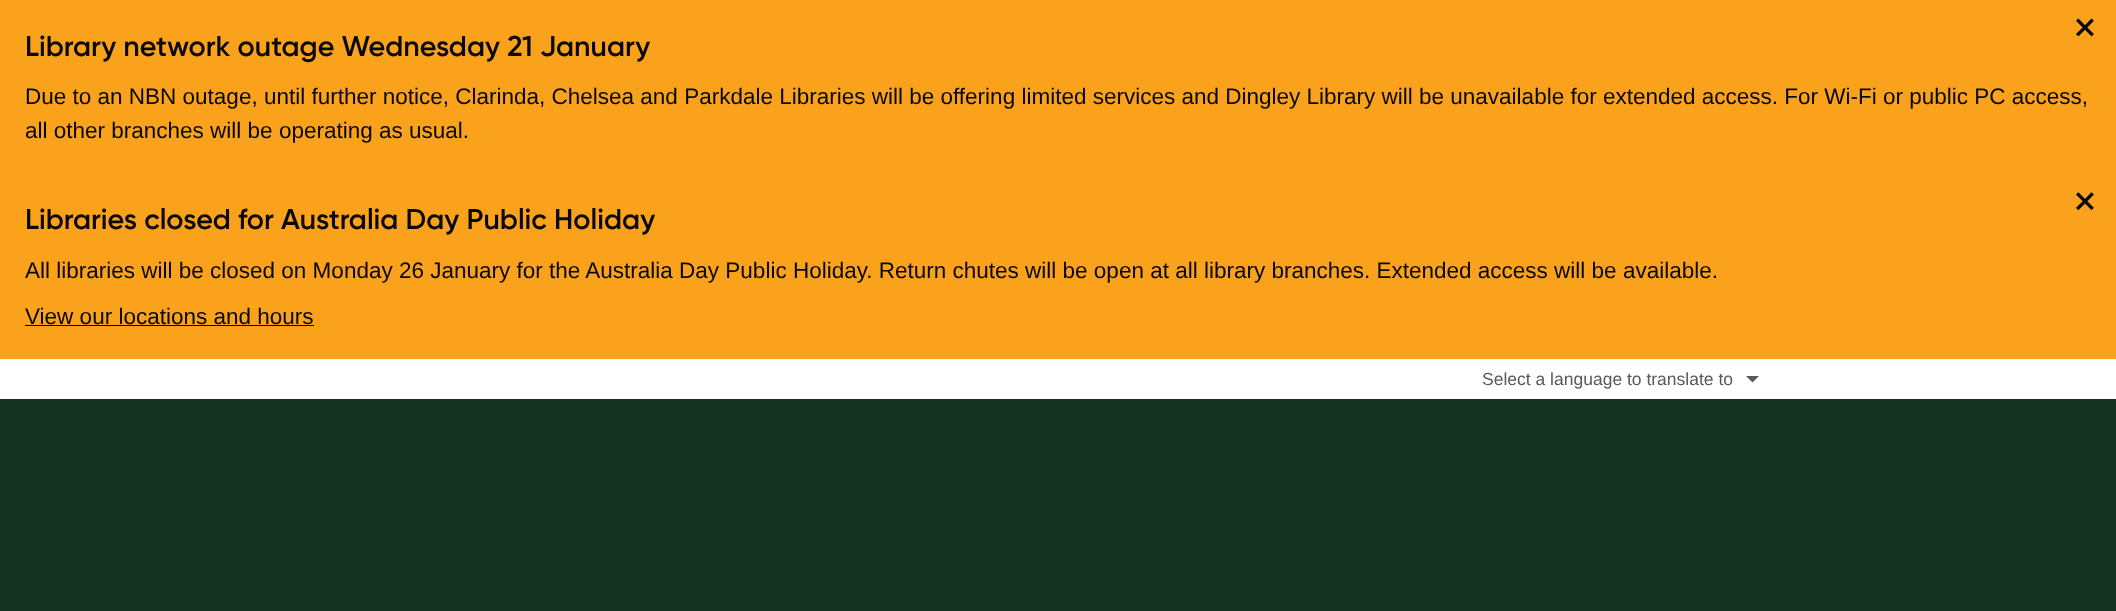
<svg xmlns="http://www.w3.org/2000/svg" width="2116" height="611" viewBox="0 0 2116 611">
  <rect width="100%" height="100%" fill="#fff"/>
  <path d="M0 0h2116v359H0z" fill="#faa21b"/>
  <image x="2076" y="18" width="18" height="19" href="img/1.png"/>
  <image x="2076" y="192" width="18" height="19" href="img/2.png"/>
  <path d="M25 325h289v1H25z" fill="#080808"/>
  <path d="M1746 376H1759L1752.5 382.5Z" fill="#5a5a5a"/>
  <path d="M0 399h2116v212H0z" fill="#143121"/>
  <text x="25" y="56" font-family="Gilroy" font-size="28.75" font-weight="600" fill="#080808">Library network outage Wednesday 21 January</text>
  <g font-family="Liberation Sans" font-size="22.5" fill="#080808">
    <text x="25" y="104">Due to an NBN outage, until further notice, Clarinda, Chelsea and Parkdale Libraries will be offering limited services and Dingley Library will be unavailable for extended access. For Wi-Fi or public PC access,</text>
    <text x="25" y="138">all other branches will be operating as usual.</text>
  </g>
  <text x="25" y="229" font-family="Gilroy" font-size="28.75" font-weight="600" fill="#080808">Libraries closed for Australia Day Public Holiday</text>
  <g font-family="Liberation Sans" font-size="22.5" fill="#080808">
    <text x="25" y="278">All libraries will be closed on Monday 26 January for the Australia Day Public Holiday. Return chutes will be open at all library branches. Extended access will be available.</text>
    <text x="25" y="324">View our locations and hours</text>
  </g>
  <text x="1482" y="385" font-family="Liberation Sans" font-size="17.5" fill="#5a5a5a">Select a language to translate to</text>
</svg>
